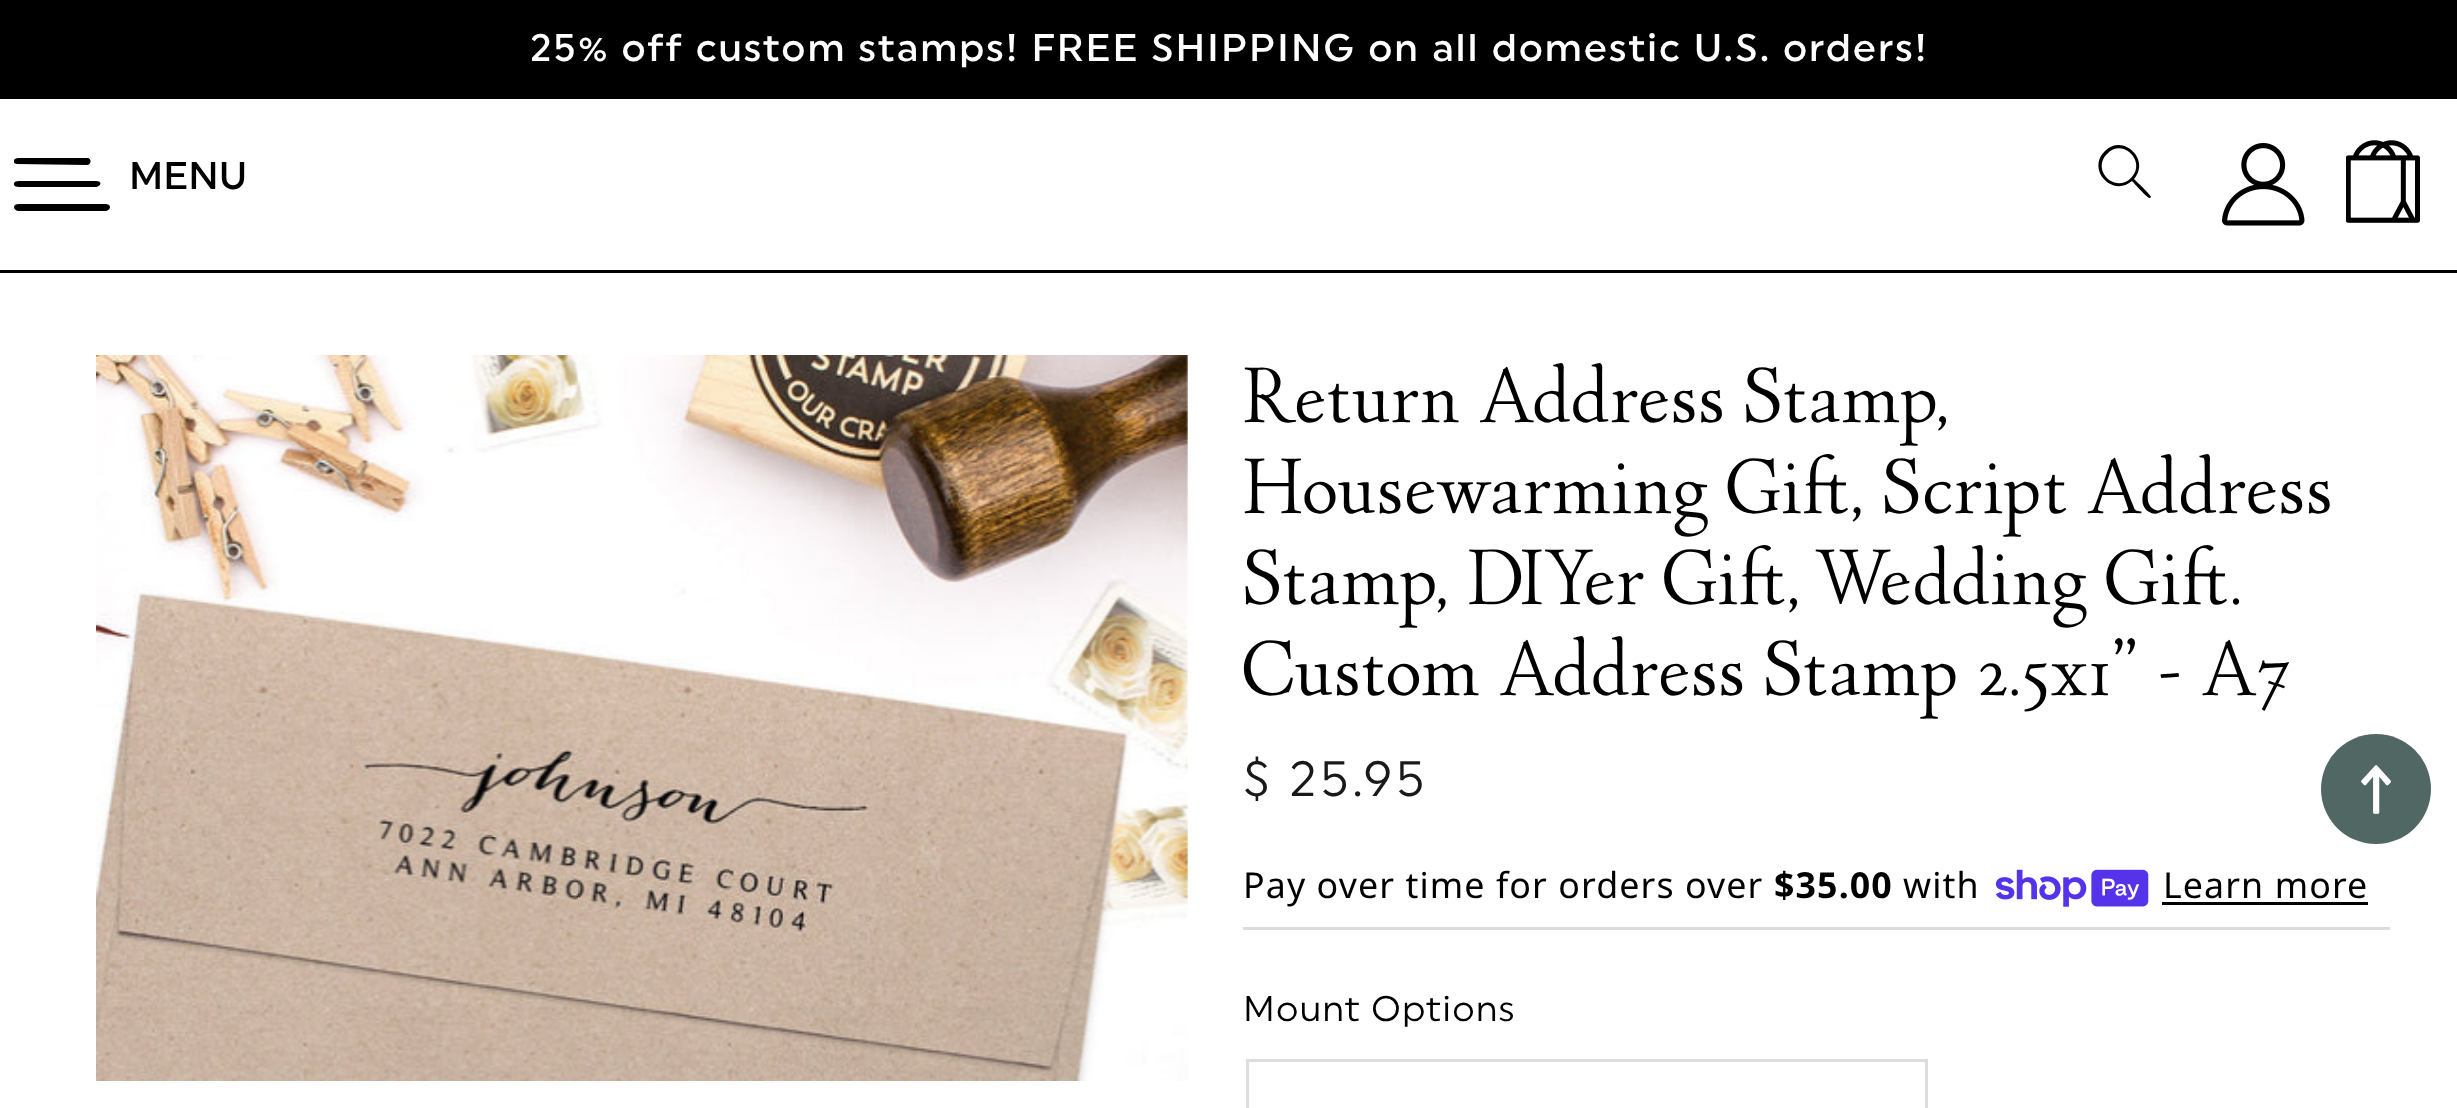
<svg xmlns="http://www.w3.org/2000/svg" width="2457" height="1108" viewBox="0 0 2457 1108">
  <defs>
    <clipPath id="clip1"><path d="M14 140h96v88H14z"/></clipPath>
  </defs>
  <rect width="100%" height="100%" fill="#fff"/>
  <path d="M0 0h2457v99H0z" fill="#000"/>
  <path d="M0 270h2457v3H0z" fill="#000"/>
  <g clip-path="url(#clip1)">
    <path d="M18 158C13 158 12 164 17 164L87 165C91 165 92 159 88 158ZM19 181C12 181 12 187 19 187H95C101 187 103 181 96 181ZM19 204C16 204 14 205 14 207C14 209 16 211 19 211H105C108 211 110 209 110 207C110 205 108 204 105 204Z" fill="#000"/>
  </g>
  <path d="M2131 178C2115 194 2091 170 2107 154C2123 137 2147 162 2131 178ZM2132 181C2112 198 2086 169 2105 151C2123 133 2151 160 2134 179C2136 181 2151 195 2151 197L2150 198C2148 199 2135 184 2132 181Z" fill="#000" fill-rule="evenodd"/>
  <image x="2222" y="143" width="83" height="83" href="img/1.png"/>
  <image x="2346" y="140" width="74" height="83" href="img/2.png"/>
  <image x="96" y="355" width="1092" height="726" href="img/3.png"/>
  <image x="1995" y="869" width="154" height="38" href="img/4.png"/>
  <path d="M2162 902h206v3H2162z" fill="#000"/>
  <path d="M1243 927h1147v3H1243z" fill="#ddd"/>
  <path d="M1247.5 1060.5h679v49H1247.5z" fill="none" stroke="#ddd" stroke-width="3"/>
  <circle cx="2376" cy="789" r="55" fill="#506763"/>
  <image x="2361" y="765" width="30" height="49" href="img/5.png"/>
  <text x="530" y="61" font-family="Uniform" font-size="38.5" letter-spacing="1.92" fill="#fff">25% off custom stamps! FREE SHIPPING on all domestic U.S. orders!</text>
  <text x="129" y="189" font-family="Uniform" font-size="38.5" fill="#000">MENU</text>
  <g font-family="'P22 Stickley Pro'" font-size="82.5" font-weight="600" fill="#000">
    <text x="1243" y="422">Return Address Stamp,</text>
    <text x="1243" y="513">Housewarming Gift, Script Address</text>
    <text x="1243" y="604">Stamp, DIYer Gift, Wedding Gift.</text>
    <text x="1243" y="695">Custom Address Stamp 2.5x1" - A7</text>
  </g>
  <text x="1243" y="796" font-family="'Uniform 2'" font-size="49.5" letter-spacing="3.5" fill="#191919">$ 25.95</text>
  <text x="1243" y="898" font-family="Noto Sans" font-size="35.75" letter-spacing="1.1" fill="#000">Pay over time for orders over</text>
  <text x="1774" y="898" font-family="Noto Sans" font-size="35.75" font-weight="bold" letter-spacing="1.1" fill="#000">$35.00</text>
  <g font-family="Noto Sans" font-size="35.75" letter-spacing="1.1" fill="#000">
    <text x="1903" y="898">with</text>
    <text x="2163" y="898">Learn more</text>
  </g>
  <text x="1243" y="1021" font-family="'Uniform 2'" font-size="35.75" letter-spacing="1.1" fill="#000">Mount Options</text>
</svg>
